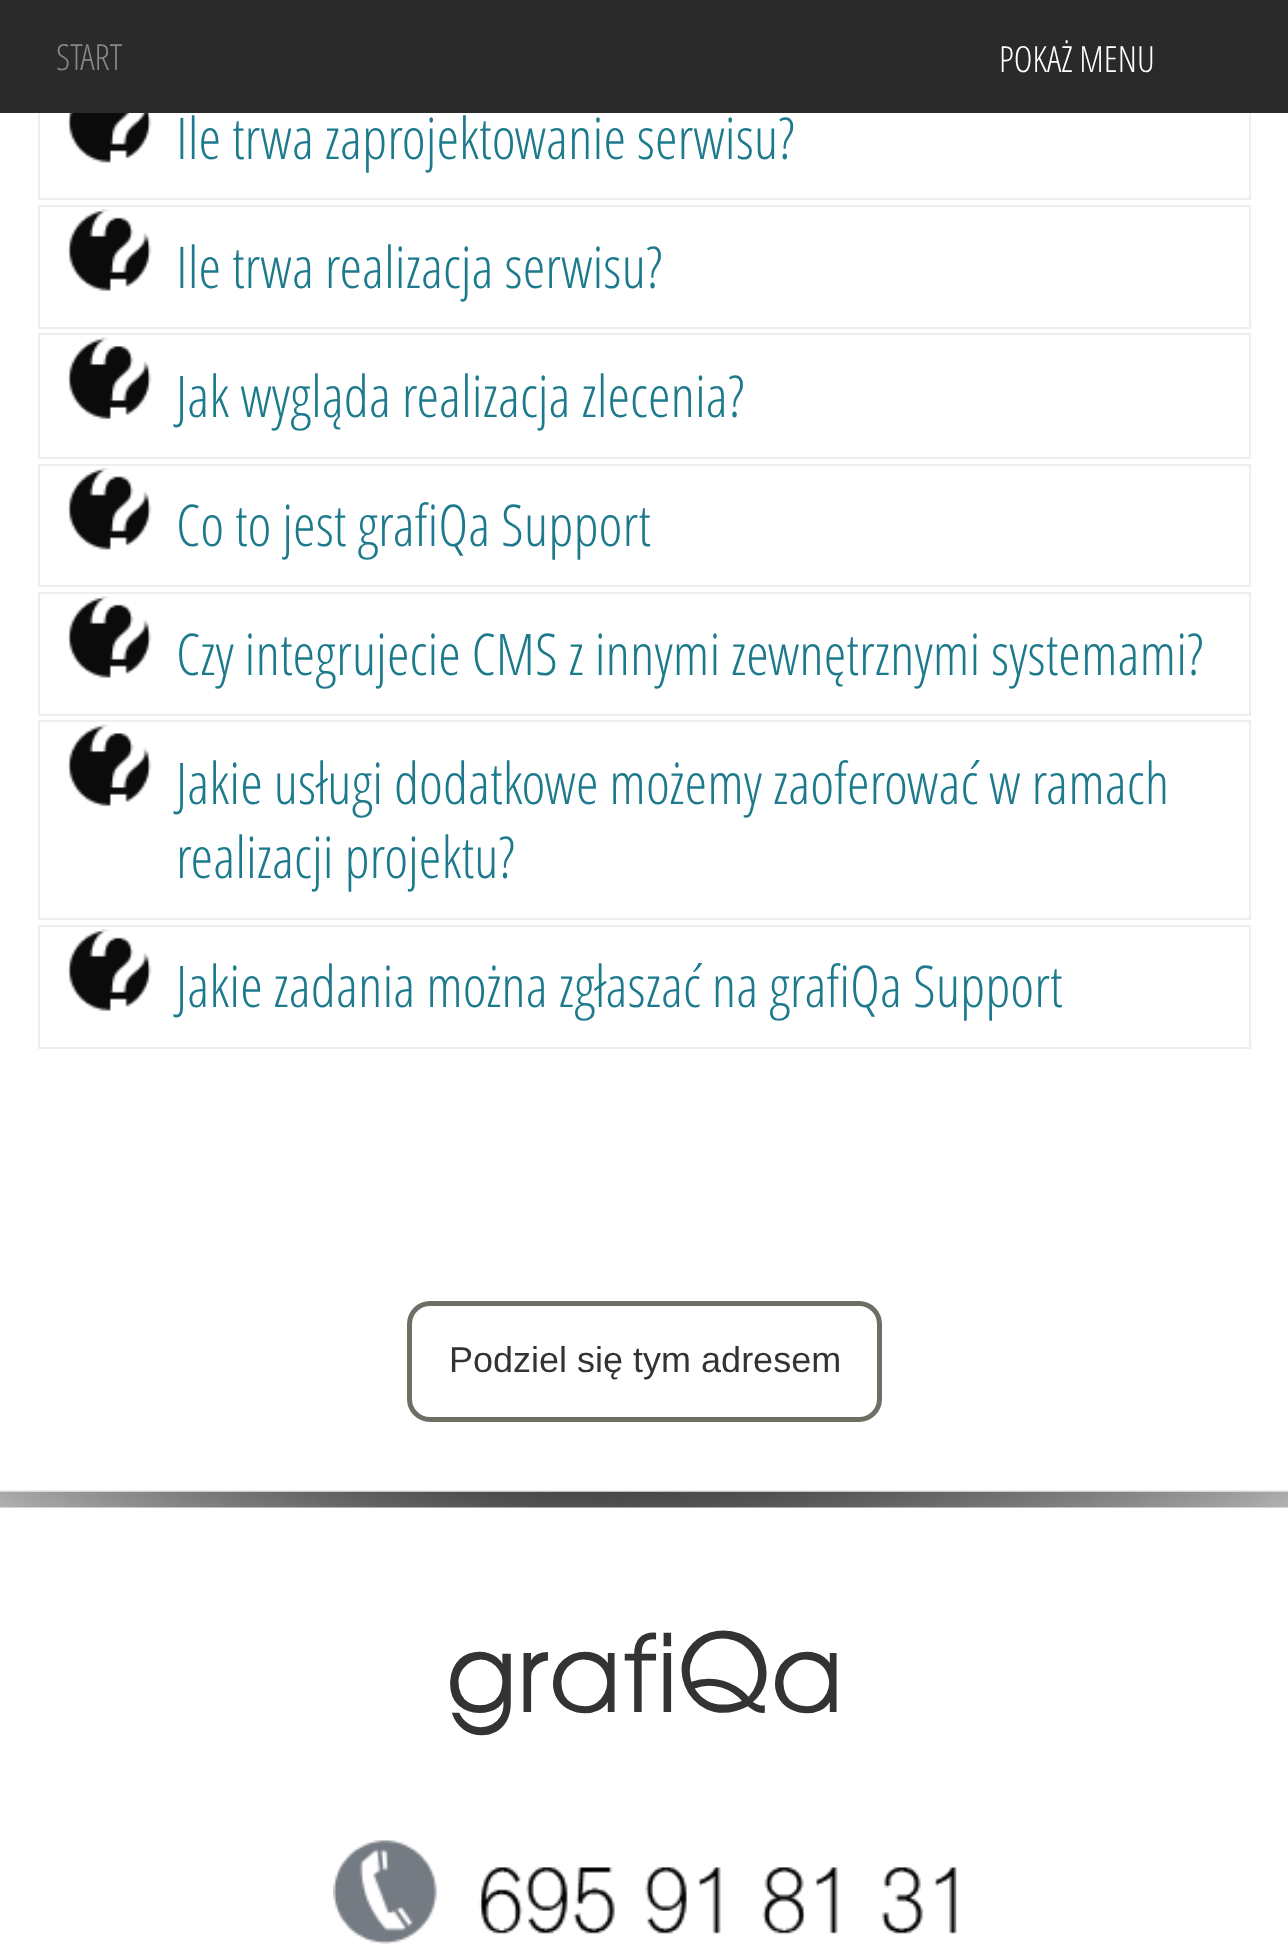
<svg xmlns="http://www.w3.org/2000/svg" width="1288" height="1955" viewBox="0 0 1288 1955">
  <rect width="100%" height="100%" fill="#fff"/>
  <image x="67" y="113" width="85" height="50" href="img/1.png"/>
  <path d="M39 78h1211v121H39z" fill="none" stroke="#eee" stroke-width="2"/>
  <path d="M0 0h1288v113H0z" fill="#2a2a2a"/>
  <image x="67" y="209" width="85" height="82" href="img/2.png"/>
  <path d="M39 206h1211v122H39z" fill="none" stroke="#eee" stroke-width="2"/>
  <image x="67" y="337" width="85" height="83" href="img/3.png"/>
  <path d="M39 334h1211v124H39z" fill="none" stroke="#eee" stroke-width="2"/>
  <image x="67" y="467" width="85" height="83" href="img/4.png"/>
  <path d="M39 465h1211v121H39z" fill="none" stroke="#eee" stroke-width="2"/>
  <image x="67" y="596" width="85" height="82" href="img/2.png"/>
  <path d="M39 593h1211v122H39z" fill="none" stroke="#eee" stroke-width="2"/>
  <image x="67" y="724" width="85" height="83" href="img/3.png"/>
  <path d="M39 721h1211v198H39z" fill="none" stroke="#eee" stroke-width="2"/>
  <image x="67" y="929" width="85" height="82" href="img/2.png"/>
  <path d="M39 926h1211v122H39z" fill="none" stroke="#eee" stroke-width="2"/>
  <rect x="409.5" y="1303.5" width="470" height="116" rx="20.5" fill="none" stroke="#6d6f64" stroke-width="5"/>
  <path d="M0 1490h1288v2H0z" fill="#eee"/>
  <image x="0" y="1491" width="1288" height="17" href="img/5.png"/>
  <image x="333" y="1840" width="624" height="104" href="img/6.png"/>
  <text x="56" y="70" font-family="Open Sans" font-size="36" font-weight="300" fill="#888">START</text>
  <text x="999" y="72" font-family="Open Sans" font-size="36" font-weight="300" fill="#fff">POKAŻ MENU</text>
  <g font-family="Open Sans" font-size="57.6" font-weight="300" fill="#1d7a8d">
    <text x="176" y="159">Ile trwa zaprojektowanie serwisu?</text>
    <text x="176" y="288">Ile trwa realizacja serwisu?</text>
    <text x="176" y="417">Jak wygląda realizacja zlecenia?</text>
    <text x="176" y="546">Co to jest grafiQa Support</text>
    <text x="176" y="675">Czy integrujecie CMS z innymi zewnętrznymi systemami?</text>
    <text x="176" y="804">Jakie usługi dodatkowe możemy zaoferować w ramach</text>
    <text x="176" y="878">realizacji projektu?</text>
    <text x="176" y="1007">Jakie zadania można zgłaszać na grafiQa Support</text>
  </g>
  <text x="449" y="1372" font-family="Liberation Sans" font-size="36" fill="#333">Podziel się tym adresem</text>
  <text x="445" y="1712" font-family="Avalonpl" font-size="108" fill="#333">grafiQa</text>
</svg>
